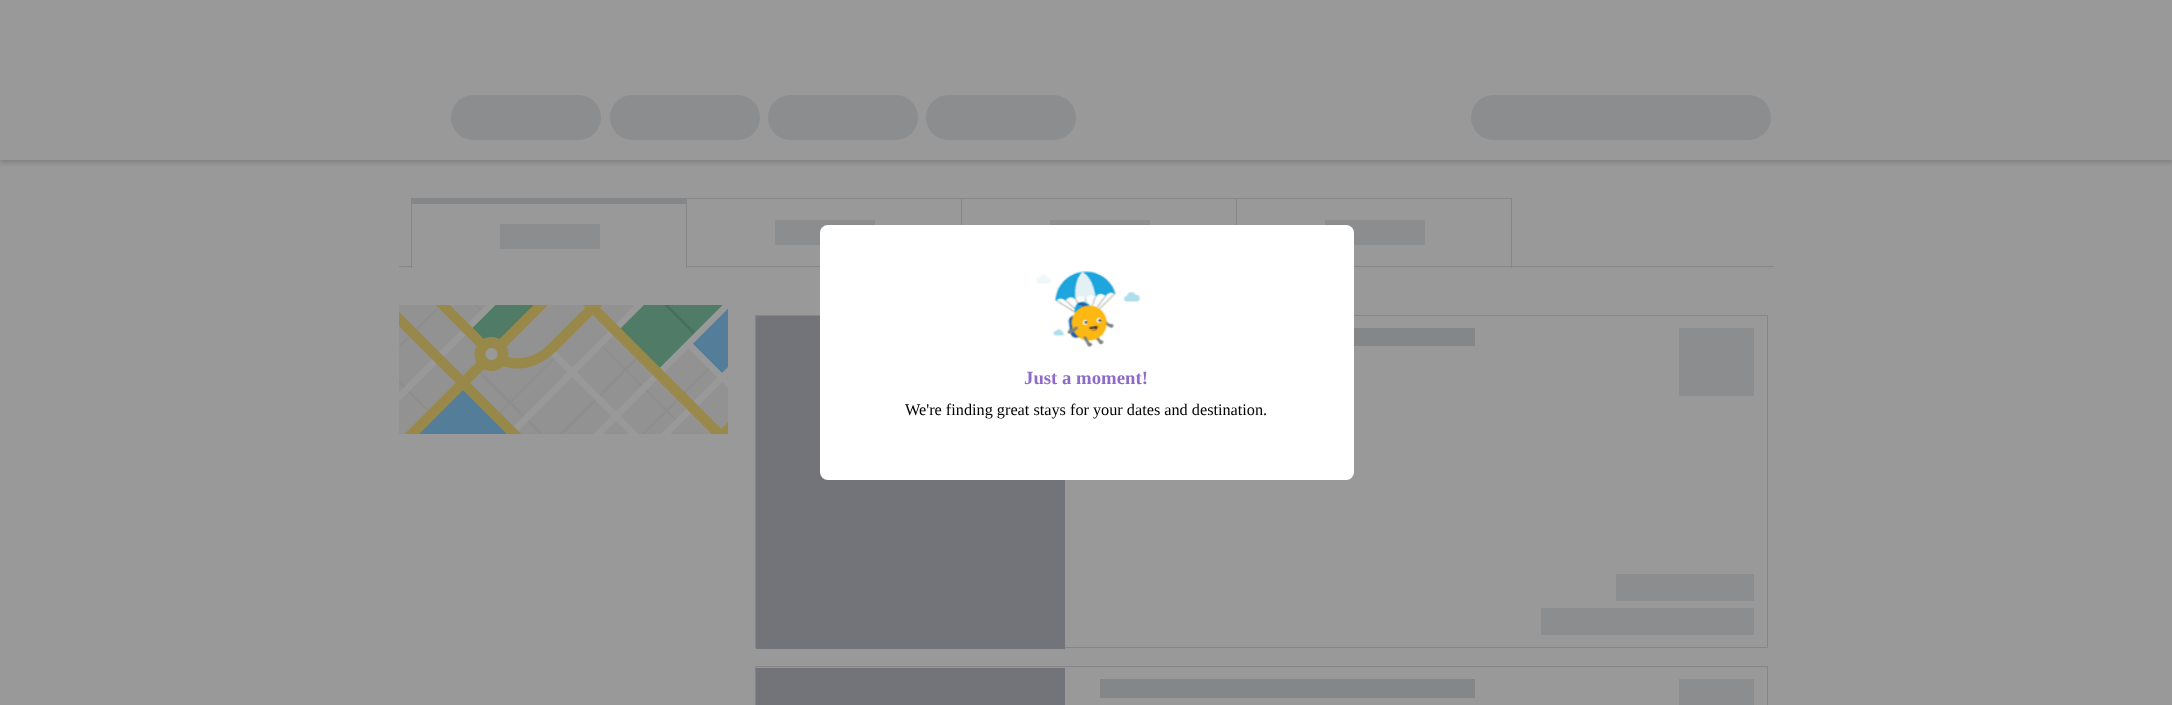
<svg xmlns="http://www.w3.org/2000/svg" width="2172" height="705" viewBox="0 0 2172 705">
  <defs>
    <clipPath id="clip1"><path d="M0 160h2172v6H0z"/></clipPath>
  </defs>
  <rect width="100%" height="100%" fill="#999"/>
  <g clip-path="url(#clip1)">
    <path d="M0 78h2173v85H0z" fill="#00000026" filter="blur(2.5px)"/>
  </g>
  <rect x="451" y="95" width="150" height="45" rx="22.5" fill="#8c8d8f"/>
  <rect x="610" y="95" width="150" height="45" rx="22.5" fill="#8c8d8f"/>
  <rect x="768" y="95" width="150" height="45" rx="22.5" fill="#8c8d8f"/>
  <rect x="926" y="95" width="150" height="45" rx="22.5" fill="#8c8d8f"/>
  <rect x="1471" y="95" width="300" height="45" rx="22.5" fill="#8c8d8f"/>
  <path d="M411 198h275v6H411z" fill="#858688"/>
  <path d="M411 198h1v70H411z" fill="#858688"/>
  <path d="M500 224h100v25H500z" fill="#8c8d8f"/>
  <path d="M686 198h825v1H686z" fill="#858688"/>
  <path d="M686 266h134v1H686z" fill="#858688"/>
  <path d="M686 198h1v70H686z" fill="#858688"/>
  <path d="M775 220h100v25H775z" fill="#8c8d8f"/>
  <path d="M961 198h1v27H961z" fill="#858688"/>
  <path d="M1050 220h100v5H1050z" fill="#8c8d8f"/>
  <path d="M1354 266h420v1H1354z" fill="#858688"/>
  <path d="M1236 198h1v27H1236z" fill="#858688"/>
  <path d="M1325 220h100v25H1325z" fill="#8c8d8f"/>
  <path d="M399 266h12v1H399z" fill="#858688"/>
  <path d="M1511 198h1v70H1511z" fill="#858688"/>
  <image x="399" y="305" width="329" height="129" href="img/1.png"/>
  <path d="M755.5 315.5h1012v332H755.5z" fill="none" stroke="#858585"/>
  <path d="M756 316h309v333H756z" fill="#727479"/>
  <path d="M1354 328h121v18H1354z" fill="#858688"/>
  <path d="M1679 328h75v68H1679z" fill="#8c8d8f"/>
  <path d="M1616 574h138v27H1616z" fill="#8c8d8f"/>
  <path d="M1541 608h213v27H1541z" fill="#8c8d8f"/>
  <path d="M755.5 666.5h1012v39H755.5z" fill="none" stroke="#858585"/>
  <path d="M756 668h309v37H756z" fill="#727479"/>
  <path d="M1100 679h375v19H1100z" fill="#858688"/>
  <path d="M1679 679h75v26H1679z" fill="#8c8d8f"/>
  <rect x="820" y="225" width="534" height="255" rx="8" fill="#fff"/>
  <image x="1036" y="271" width="105" height="77" href="img/2.png"/>
  <text x="1024" y="384" font-family="Liberation Serif" font-size="18.75" font-weight="bold" fill="#8e6acb">Just a moment!</text>
  <text x="905" y="415" font-family="Liberation Serif" font-size="16.25" fill="#000">We're finding great stays for your dates and destination.</text>
</svg>
